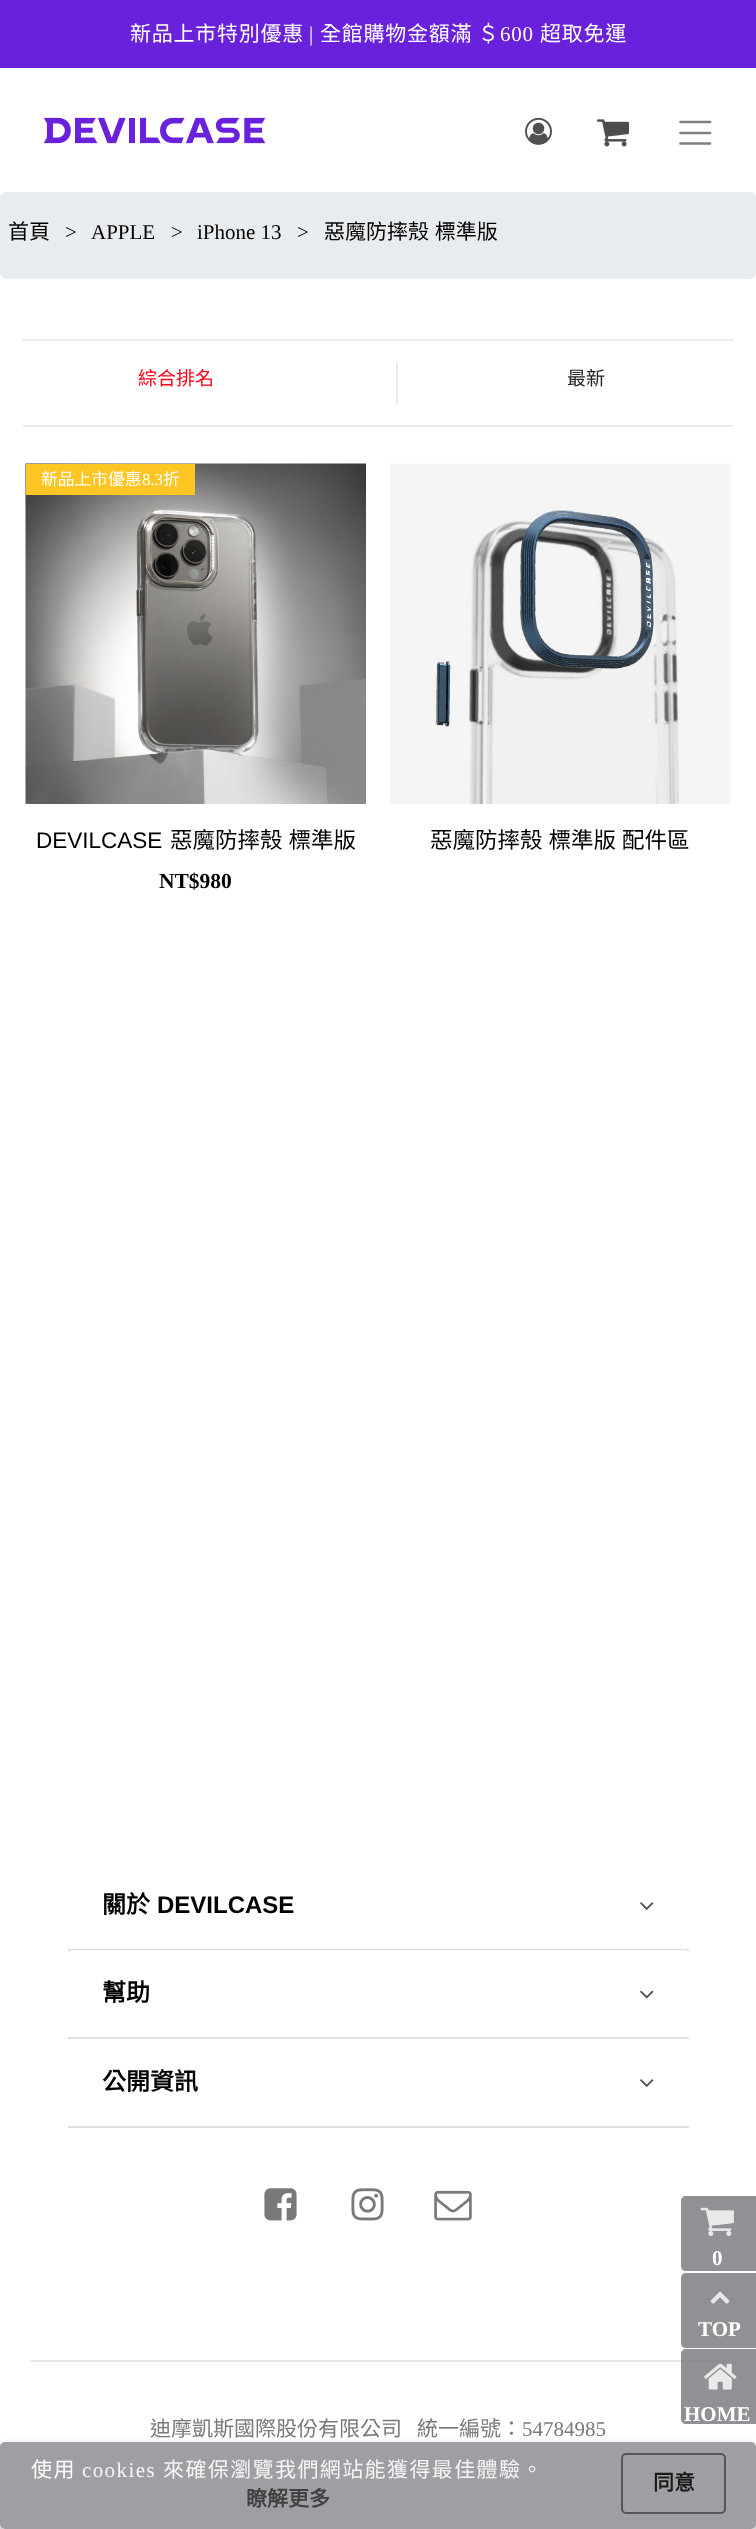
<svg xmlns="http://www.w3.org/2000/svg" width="756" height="2529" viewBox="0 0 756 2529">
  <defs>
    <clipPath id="clip1"><path d="M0 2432H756V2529H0ZM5 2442H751C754 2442 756 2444 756 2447V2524C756 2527 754 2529 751 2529H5C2 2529 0 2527 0 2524V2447C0 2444 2 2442 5 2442Z" clip-rule="evenodd"/></clipPath>
  </defs>
  <rect width="100%" height="100%" fill="#fff"/>
  <path d="M0 0h756v68H0z" fill="#6a21db"/>
  <image x="43" y="117" width="223" height="27" href="img/1.png"/>
  <image x="525" y="117" width="27" height="28" href="img/2.png"/>
  <image x="597" y="119" width="33" height="28" href="img/3.png"/>
  <path d="M680.5 122H710M680.5 133H710M680.5 143.5H710" fill="none" stroke="#808080" stroke-width="2.7" stroke-linecap="round"/>
  <rect y="192" width="756" height="87" rx="6" fill="#e9ecef"/>
  <path d="M23 339h711v2H23z" fill="#e9ecef"/>
  <path d="M23 425h711v2H23z" fill="#e9ecef"/>
  <path d="M396 362h2v42H396z" fill="#e9ecef"/>
  <image x="25" y="463" width="341" height="341" href="img/4.png"/>
  <path d="M26 464h169v31H26z" fill="#ffc522"/>
  <image x="390" y="463" width="341" height="341" href="img/5.png"/>
  <path d="M68 1949h621v2H68z" fill="#dfdfdf"/>
  <image x="640" y="1902" width="14" height="8" href="img/6.png"/>
  <path d="M73 1950H684C687 1950 689 1952 689 1955V2039H68V1955C68 1952 70 1950 73 1950Z" fill="#fff"/>
  <path d="M68 2037h621v2H68z" fill="#dfdfdf"/>
  <image x="640" y="1990" width="14" height="9" href="img/7.png"/>
  <path d="M68 2126h621v2H68z" fill="#dfdfdf"/>
  <image x="640" y="2079" width="14" height="8" href="img/6.png"/>
  <image x="264" y="2188" width="33" height="33" href="img/8.png"/>
  <image x="351" y="2188" width="33" height="33" href="img/9.png"/>
  <image x="434" y="2190" width="38" height="31" href="img/10.png"/>
  <path d="M30 2360h696v2H30z" fill="#e6e6e6"/>
  <path d="M686 2196H756V2271H686C683 2271 681 2269 681 2266V2201C681 2198 683 2196 686 2196Z" fill="#919195"/>
  <image x="700" y="2207" width="34" height="29" href="img/11.png"/>
  <path d="M686 2273H756V2348H686C683 2348 681 2346 681 2343V2278C681 2275 683 2273 686 2273Z" fill="#919195"/>
  <image x="710" y="2291" width="20" height="13" href="img/12.png"/>
  <path d="M686 2349H756V2424H686C683 2424 681 2422 681 2419V2354C681 2351 683 2349 686 2349Z" fill="#76767acc"/>
  <image x="704" y="2363" width="33" height="27" href="img/13.png"/>
  <g clip-path="url(#clip1)">
    <rect y="2447" width="756" height="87" rx="5" fill="#1a1a1a3b" filter="blur(4.5px)"/>
    <rect y="2447" width="756" height="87" rx="5" fill="#1a1a1a29" filter="blur(4.5px)"/>
  </g>
  <rect y="2442" width="756" height="87" rx="5" fill="#949599e6"/>
  <rect x="622" y="2454" width="103" height="59" rx="4" fill="none" stroke="#4d4d4de6" stroke-width="2"/>
  <text x="130" y="41" font-family="Noto Sans CJK TC" font-size="21" letter-spacing="0.75" fill="#fff">新品上市特別優惠</text>
  <text x="309" y="41" font-family="Liberation Serif" font-size="21" letter-spacing="0.75" fill="#fff">|</text>
  <text x="320" y="41" font-family="Noto Sans CJK TC" font-size="21" letter-spacing="0.75" fill="#fff">全館購物金額滿 ＄</text>
  <text x="500" y="41" font-family="Liberation Serif" font-size="21" letter-spacing="0.75" fill="#fff">600</text>
  <text x="540" y="41" font-family="Noto Sans CJK TC" font-size="21" letter-spacing="0.75" fill="#fff">超取免運</text>
  <text x="8" y="239" font-family="Noto Sans CJK TC" font-size="21" fill="#000">首頁</text>
  <g font-family="Liberation Serif" font-size="21" fill="#000">
    <text x="65" y="239">&gt;</text>
    <text x="91" y="239">APPLE</text>
    <text x="171" y="239">&gt;</text>
    <text x="197" y="239">iPhone 13</text>
    <text x="297" y="239">&gt;</text>
  </g>
  <text x="324" y="239" word-spacing="1" font-family="Noto Sans CJK TC" font-size="21" fill="#000">惡魔防摔殼 標準版</text>
  <text x="138" y="385" font-family="Noto Sans CJK TC" font-size="19" fill="#ff0018">綜合排名</text>
  <text x="567" y="385" font-family="Noto Sans CJK TC" font-size="19" fill="#212529">最新</text>
  <text x="41" y="485" font-family="Noto Sans CJK TC" font-size="16.75" fill="#fff">新品上市優惠</text>
  <text x="142" y="485" font-family="Liberation Serif" font-size="16.75" fill="#fff">8.3</text>
  <text x="163" y="485" font-family="Noto Sans CJK TC" font-size="16.75" fill="#fff">折</text>
  <text x="36" y="848" font-family="Liberation Sans" font-size="22.5" fill="#000">DEVILCASE</text>
  <text x="170" y="848" word-spacing="1" font-family="Noto Sans CJK TC" font-size="22.5" fill="#000">惡魔防摔殼 標準版</text>
  <text x="159" y="888" font-family="Liberation Serif" font-size="21.5" font-weight="bold" fill="#000">NT$980</text>
  <text x="430" y="848" word-spacing="1" font-family="Noto Sans CJK TC" font-size="22.5" fill="#000">惡魔防摔殼 標準版 配件區</text>
  <text x="102" y="1913" font-family="Noto Sans CJK TC" font-size="24" font-weight="bold" fill="#000">關於</text>
  <text x="157" y="1913" font-family="Liberation Sans" font-size="24" font-weight="bold" fill="#000">DEVILCASE</text>
  <g font-family="Noto Sans CJK TC" font-size="24" font-weight="bold" fill="#000">
    <text x="102" y="2001">幫助</text>
    <text x="102" y="2090">公開資訊</text>
  </g>
  <g font-family="Noto Sans CJK TC" font-size="21" fill="#797979">
    <text x="150" y="2436">迪摩凱斯國際股份有限公司</text>
    <text x="417" y="2436">統一編號：</text>
  </g>
  <text x="522" y="2436" font-family="Liberation Serif" font-size="21" fill="#797979">54784985</text>
  <g font-family="Liberation Serif" font-size="21" font-weight="bold" fill="#fff">
    <text x="712" y="2265">0</text>
    <text x="698" y="2336">TOP</text>
    <text x="684" y="2421">HOME</text>
  </g>
  <text x="31" y="2477" font-family="Noto Sans CJK TC" font-size="21" letter-spacing="1.4" fill="#fff">使用</text>
  <text x="82" y="2477" font-family="Liberation Serif" font-size="21" letter-spacing="1.4" fill="#f5f5f6">cookies</text>
  <text x="163" y="2477" font-family="Noto Sans CJK TC" font-size="21" letter-spacing="1.4" fill="#f5f5f6">來確保瀏覽我們網站能獲得最佳體驗。</text>
  <text x="246" y="2506" font-family="Noto Sans CJK TC" font-size="21" font-weight="bold" fill="#404040">瞭解更多</text>
  <text x="653" y="2490" font-family="Noto Sans CJK TC" font-size="21" font-weight="bold" fill="#1a1a1a">同意</text>
</svg>
